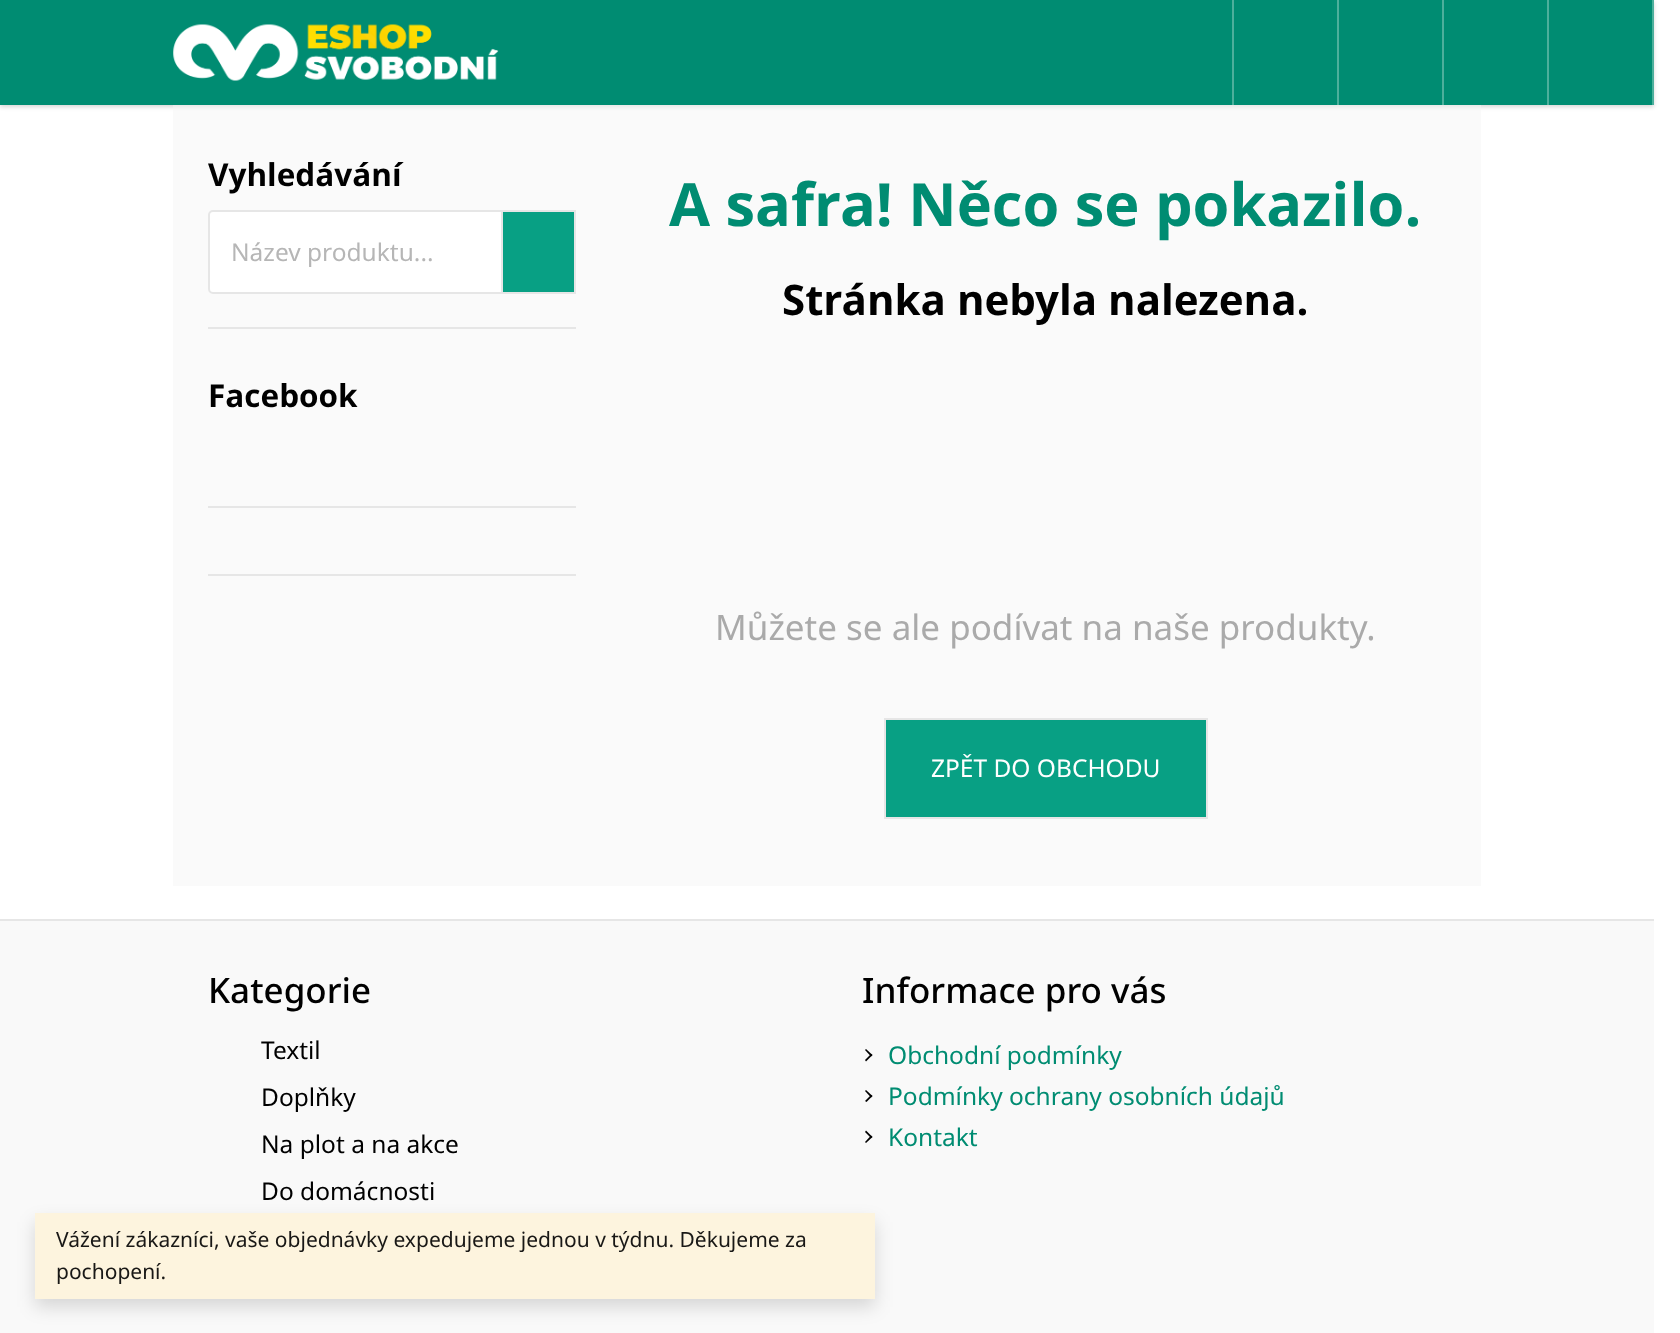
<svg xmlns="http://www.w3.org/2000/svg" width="1680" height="1333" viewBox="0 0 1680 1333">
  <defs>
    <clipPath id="clip1"><path d="M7 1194H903V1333H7ZM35 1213H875V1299H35Z" clip-rule="evenodd"/></clipPath>
  </defs>
  <rect width="100%" height="100%" fill="#fff"/>
  <path d="M0 2h1654v105H0z" fill="#00000029" filter="blur(2px)"/>
  <path d="M0 0h1652v105H0z" fill="#008c72"/>
  <image x="173" y="24" width="326" height="57" href="img/1.png"/>
  <path d="M1652 0h2v105H1652z" fill="#4daf9c"/>
  <path d="M1232 0h2v105H1232z" fill="#4daf9c"/>
  <path d="M1337 0h2v105H1337z" fill="#4daf9c"/>
  <path d="M1442 0h2v105H1442z" fill="#4daf9c"/>
  <path d="M1547 0h2v105H1547z" fill="#4daf9c"/>
  <path d="M173 105h1308v781H173z" fill="#f6f6f680"/>
  <rect x="209" y="211" width="366" height="82" rx="4" fill="#fff" stroke="#e6e6e6" stroke-width="2"/>
  <path d="M502 211h73v82H502z" fill="#08a084" stroke="#e6e6e6" stroke-width="2"/>
  <path d="M208 327h368v2H208z" fill="#e6e6e6"/>
  <path d="M208 506h368v2H208z" fill="#e6e6e6"/>
  <path d="M208 574h368v2H208z" fill="#e6e6e6"/>
  <path d="M885 719h322v99H885z" fill="#08a084" stroke="#e6e6e6" stroke-width="2"/>
  <path d="M0 921h1654v412H0z" fill="#f9f9f9"/>
  <path d="M0 919h1654v2H0z" fill="#e6e6e6"/>
  <path d="M865 1050L866 1049L872.5 1055L871 1056.5Z" fill="#000"/>
  <path d="M865 1060L871 1054L872.5 1055L866 1061.5Z" fill="#000"/>
  <path d="M865 1091L866 1090L872.5 1096L871 1097.5Z" fill="#000"/>
  <path d="M865 1101L871 1095L872.5 1096L866.5 1102Z" fill="#000"/>
  <path d="M865 1132L866 1130.5L872.5 1137L871 1138Z" fill="#000"/>
  <path d="M865 1142L871 1135.5L872.5 1137L866 1143Z" fill="#000"/>
  <g clip-path="url(#clip1)">
    <path d="M35 1222h840v85H35z" fill="#00000024" filter="blur(9px)"/>
  </g>
  <path d="M35 1213h840v86H35z" fill="#fdf3dae6"/>
  <text x="208" y="186" font-family="Noto Sans" font-size="31.5" font-weight="bold" fill="#000">Vyhledávání</text>
  <text x="231" y="261" font-family="Noto Sans" font-size="24.5" fill="#b6b6b6">Název produktu...</text>
  <text x="208" y="407" font-family="Noto Sans" font-size="31.5" font-weight="bold" fill="#000">Facebook</text>
  <text x="669" y="226" font-family="Noto Sans" font-size="59.5" font-weight="bold" fill="#008c72">A safra! Něco se pokazilo.</text>
  <text x="782" y="315" font-family="Noto Sans" font-size="42" font-weight="bold" fill="#000">Stránka nebyla nalezena.</text>
  <text x="715" y="640" font-family="Noto Sans" font-size="35" fill="#aaa">Můžete se ale podívat na naše produkty.</text>
  <text x="931" y="777" font-family="Noto Sans" font-size="24.5" fill="#fff">ZPĚT DO OBCHODU</text>
  <text x="208" y="1003" font-family="Noto Sans" font-size="35" font-weight="500" fill="#000">Kategorie</text>
  <g font-family="Noto Sans" font-size="24.5" fill="#000">
    <text x="261" y="1059">Textil</text>
    <text x="261" y="1106">Doplňky</text>
    <text x="261" y="1153">Na plot a na akce</text>
    <text x="261" y="1200">Do domácnosti</text>
  </g>
  <text x="862" y="1003" font-family="Noto Sans" font-size="35" font-weight="500" fill="#000">Informace pro vás</text>
  <g font-family="Noto Sans" font-size="24.5" fill="#008c72">
    <text x="888" y="1064">Obchodní podmínky</text>
    <text x="888" y="1105">Podmínky ochrany osobních údajů</text>
    <text x="888" y="1146">Kontakt</text>
  </g>
  <g font-family="Noto Sans" font-size="21" fill="#191816">
    <text x="56" y="1247">Vážení zákazníci, vaše objednávky expedujeme jednou v týdnu. Děkujeme za</text>
    <text x="56" y="1279">pochopení.</text>
  </g>
</svg>
